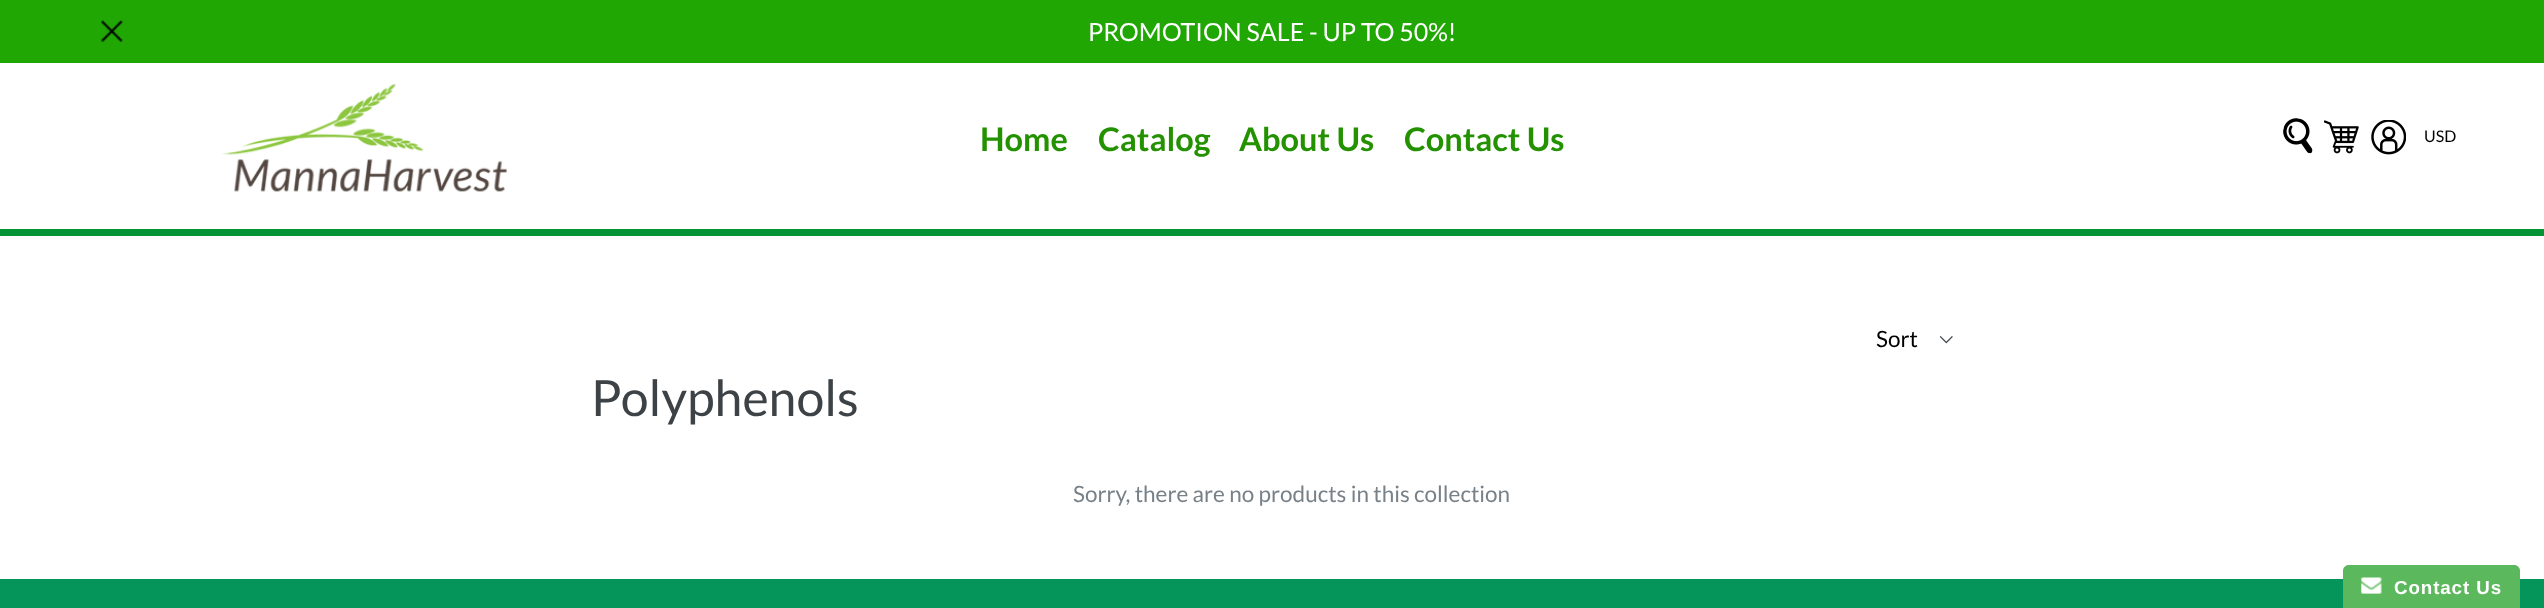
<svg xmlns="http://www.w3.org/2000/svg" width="2544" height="608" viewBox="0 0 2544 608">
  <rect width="100%" height="100%" fill="#fff"/>
  <path d="M0 0h2544v63H0z" fill="#20a704"/>
  <image x="101" y="20" width="22" height="22" href="img/1.png"/>
  <path d="M0 229h2544v7H0z" fill="#059435"/>
  <image x="222" y="84" width="285" height="108" href="img/2.png"/>
  <image x="2283" y="118" width="30" height="36" href="img/3.png"/>
  <image x="2324" y="120" width="35" height="34" href="img/4.png"/>
  <image x="2371" y="120" width="35" height="35" href="img/5.png"/>
  <image x="1939" y="336" width="14" height="8" href="img/6.png"/>
  <path d="M0 579h2544v29H0z" fill="#05945a"/>
  <path d="M2349 565H2514C2517.5 565 2520 567.5 2520 571V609H2343V571C2343 567.5 2345.5 565 2349 565Z" fill="#5cb85c"/>
  <image x="2361" y="577" width="21" height="17" href="img/7.png"/>
  <text x="1088" y="41" font-family="Lato" font-size="25" fill="#fff">PROMOTION SALE - UP TO 50%!</text>
  <g font-family="Lato" font-size="32.5" font-weight="bold" fill="#249200">
    <text x="980" y="151">Home</text>
    <text x="1098" y="151">Catalog</text>
    <text x="1239" y="151">About Us</text>
    <text x="1404" y="151">Contact Us</text>
  </g>
  <text x="2424" y="142" font-family="Lato" font-size="16" fill="#000">USD</text>
  <text x="1876" y="347" font-family="Lato" font-size="22.5" fill="#000">Sort</text>
  <text x="591" y="416" font-family="Lato" font-size="50" fill="#3d4246">Polyphenols</text>
  <text x="1073" y="502" font-family="Lato" font-size="22.5" fill="#788188">Sorry, there are no products in this collection</text>
  <text x="2394" y="594" font-family="Liberation Sans" font-size="18.75" font-weight="bold" letter-spacing="0.9" fill="#fff">Contact Us</text>
</svg>
